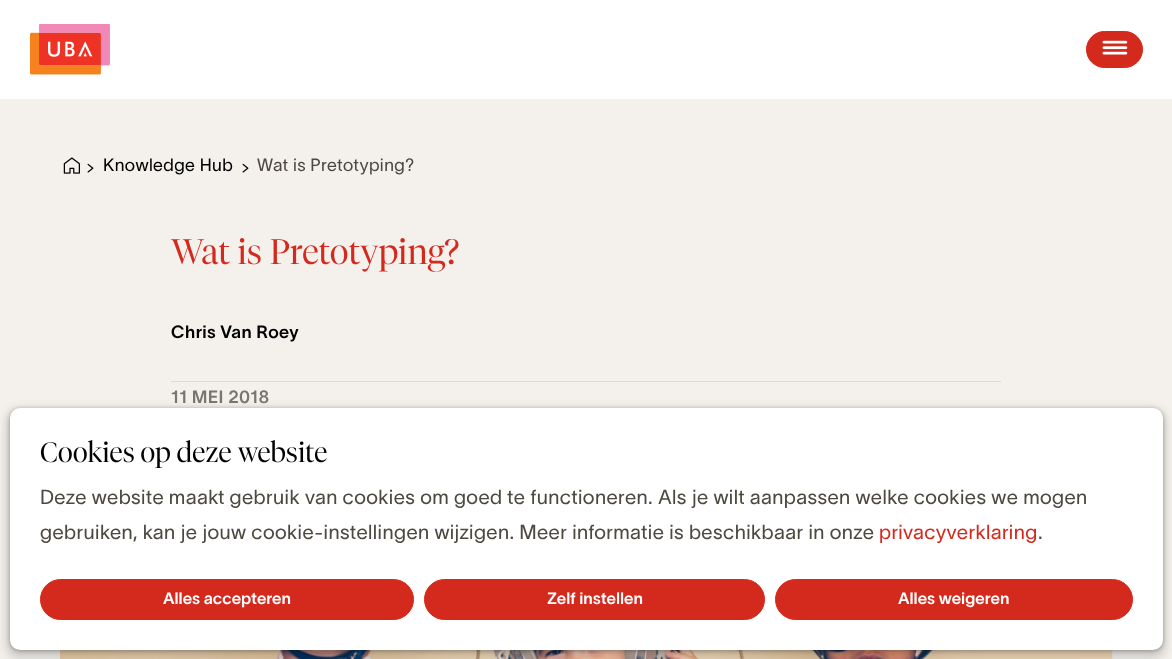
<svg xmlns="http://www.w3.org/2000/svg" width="1172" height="659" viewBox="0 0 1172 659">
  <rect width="100%" height="100%" fill="#f4f1ed"/>
  <path d="M0 0h1172v99H0z" fill="#fff"/>
  <image x="30" y="24" width="80" height="51" href="img/1.png"/>
  <rect x="1086.5" y="31.5" width="56" height="36" rx="18" fill="#d32a1d" stroke="#d32a1d"/>
  <image x="1102" y="40" width="26" height="15" href="img/2.png"/>
  <image x="63" y="157" width="17" height="17" href="img/3.png"/>
  <image x="87" y="163" width="7" height="10" href="img/4.png"/>
  <image x="242" y="163" width="7" height="10" href="img/4.png"/>
  <path d="M171 381h830v1H171z" fill="#dbdad9"/>
  <image x="60" y="650" width="1053" height="9" href="img/5.png"/>
  <rect x="10" y="409" width="1153" height="242" rx="10" fill="#0000004d" filter="blur(2px)"/>
  <rect x="6" y="409" width="1160" height="250" rx="14" fill="#00000026" filter="blur(5px)"/>
  <rect x="10" y="408" width="1153" height="242" rx="10" fill="#fff"/>
  <rect x="40.5" y="579.5" width="373" height="40" rx="20" fill="#d32a1d" stroke="#d32a1d"/>
  <rect x="424.5" y="579.5" width="340" height="40" rx="20" fill="#d32a1d" stroke="#d32a1d"/>
  <rect x="775.5" y="579.5" width="357" height="40" rx="20" fill="#d32a1d" stroke="#d32a1d"/>
  <text x="103" y="171" font-family="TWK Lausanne" font-size="17.5" font-weight="300" letter-spacing="0.4" fill="#000">Knowledge Hub</text>
  <text x="257" y="171" font-family="TWK Lausanne" font-size="17.5" font-weight="300" letter-spacing="0.4" fill="#4d4941">Wat is Pretotyping?</text>
  <text x="171" y="264" font-family="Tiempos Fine" font-size="35.25" font-weight="300" fill="#d32a1d">Wat is Pretotyping?</text>
  <text x="171" y="338" font-family="TWK Lausanne" font-size="17.5" font-weight="600" letter-spacing="0.4" fill="#000">Chris Van Roey</text>
  <text x="171" y="403" font-family="TWK Lausanne" font-size="17.5" font-weight="600" letter-spacing="0.4" fill="#797670">11 MEI 2018</text>
  <text x="40" y="462" font-family="Tiempos Fine" font-size="28" font-weight="300" fill="#000">Cookies op deze website</text>
  <g font-family="TWK Lausanne" font-size="20" font-weight="300" letter-spacing="0.4" fill="#4d4941">
    <text x="40" y="504">Deze website maakt gebruik van cookies om goed te functioneren. Als je wilt aanpassen welke cookies we mogen</text>
    <text x="40" y="539">gebruiken, kan je jouw cookie-instellingen wijzigen. Meer informatie is beschikbaar in onze</text>
  </g>
  <text x="879" y="539" font-family="TWK Lausanne" font-size="20" font-weight="300" letter-spacing="0.4" fill="#d32a1d">privacyverklaring</text>
  <text x="1038" y="539" font-family="TWK Lausanne" font-size="20" font-weight="300" letter-spacing="0.4" fill="#4d4941">.</text>
  <g font-family="TWK Lausanne" font-size="16.25" font-weight="600" fill="#fff">
    <text x="163" y="604">Alles accepteren</text>
    <text x="547" y="604">Zelf instellen</text>
    <text x="898" y="604">Alles weigeren</text>
  </g>
</svg>
